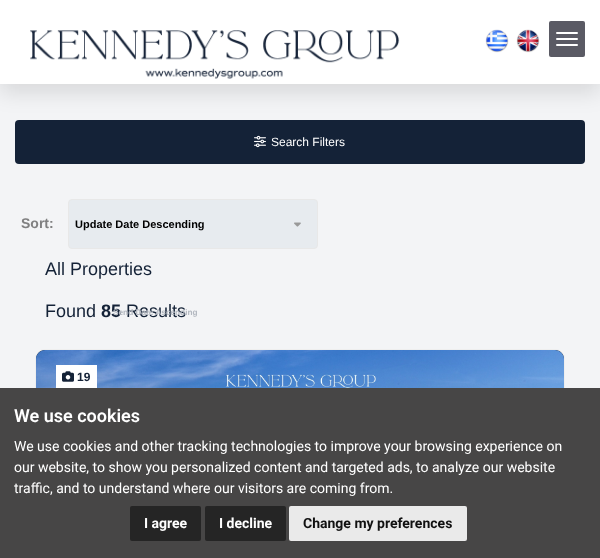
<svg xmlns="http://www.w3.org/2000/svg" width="600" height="558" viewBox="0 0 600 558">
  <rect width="100%" height="100%" fill="#f3f4f6"/>
  <rect x="15" y="120" width="570" height="44" rx="4" fill="#142237"/>
  <path d="M0 9h600v85H0z" fill="#0000001a" filter="blur(10px)"/>
  <path d="M0 0h600v84H0z" fill="#fff"/>
  <image x="30" y="30" width="370" height="49" href="img/1.png"/>
  <image x="485" y="29" width="24" height="24" href="img/2.png"/>
  <image x="516" y="29" width="24" height="24" href="img/3.png"/>
  <rect x="549" y="21" width="36" height="36" rx="2" fill="#5a5a64"/>
  <rect x="556" y="32" width="22" height="2" rx="1" fill="#fff"/>
  <rect x="556" y="38" width="22" height="2" rx="1" fill="#fff"/>
  <rect x="556" y="44" width="22" height="2" rx="1" fill="#fff"/>
  <image x="254" y="135" width="12" height="13" href="img/4.png"/>
  <rect x="68.5" y="199.5" width="249" height="49" rx="3.5" fill="#e7ebef" stroke="#e8e8e8"/>
  <image x="294" y="222" width="7" height="5" href="img/5.png"/>
  <rect x="35.5" y="349.5" width="529" height="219" rx="9.5" fill="none" stroke="#eee"/>
  <path d="M45 350H555C560 350 564 354 564 359V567H36V359C36 354 40 350 45 350Z" fill="#142237"/>
  <image x="36" y="350" width="528" height="38" href="img/6.png"/>
  <path d="M56 365h41v23H56z" fill="#fff"/>
  <image x="62" y="371" width="12" height="11" href="img/7.png"/>
  <path d="M0 388h600v170H0z" fill="#474646"/>
  <rect x="130" y="506" width="71" height="35" rx="2" fill="#252525"/>
  <rect x="205" y="506" width="81" height="35" rx="2" fill="#252525"/>
  <rect x="289" y="506" width="178" height="35" rx="2" fill="#eaeaea"/>
  <text x="271" y="146" font-family="Liberation Sans" font-size="12" fill="#fff">Search Filters</text>
  <text x="21" y="228" font-family="Liberation Sans" font-size="14" font-weight="bold" fill="#808081">Sort:</text>
  <text x="75" y="228" font-family="Liberation Sans" font-size="11" font-weight="bold" fill="#010101">Update Date Descending</text>
  <g font-family="Liberation Sans" font-size="18" fill="#142237">
    <text x="45" y="275">All Properties</text>
    <text x="45" y="317">Found</text>
  </g>
  <text x="101" y="317" font-family="Liberation Sans" font-size="18" font-weight="bold" fill="#142237">85</text>
  <text x="126" y="317" font-family="Liberation Sans" font-size="18" fill="#142237">Results</text>
  <text x="113" y="315" font-family="Liberation Sans" font-size="8.25" font-weight="bold" fill="#b3b8c0">Send Date Ascending</text>
  <text x="77" y="381" font-family="Liberation Sans" font-size="12" font-weight="bold" fill="#142237">19</text>
  <text x="14" y="422" font-family="Roboto" font-size="18" font-weight="600" fill="#fff">We use cookies</text>
  <g font-family="Roboto" font-size="14" fill="#fff">
    <text x="14" y="451">We use cookies and other tracking technologies to improve your browsing experience on</text>
    <text x="14" y="472">our website, to show you personalized content and targeted ads, to analyze our website</text>
    <text x="14" y="493">traffic, and to understand where our visitors are coming from.</text>
  </g>
  <g font-family="Roboto" font-size="14" font-weight="bold" fill="#fff">
    <text x="144" y="528">I agree</text>
    <text x="219" y="528">I decline</text>
  </g>
  <text x="303" y="528" font-family="Roboto" font-size="14" font-weight="bold" fill="#111">Change my preferences</text>
</svg>
